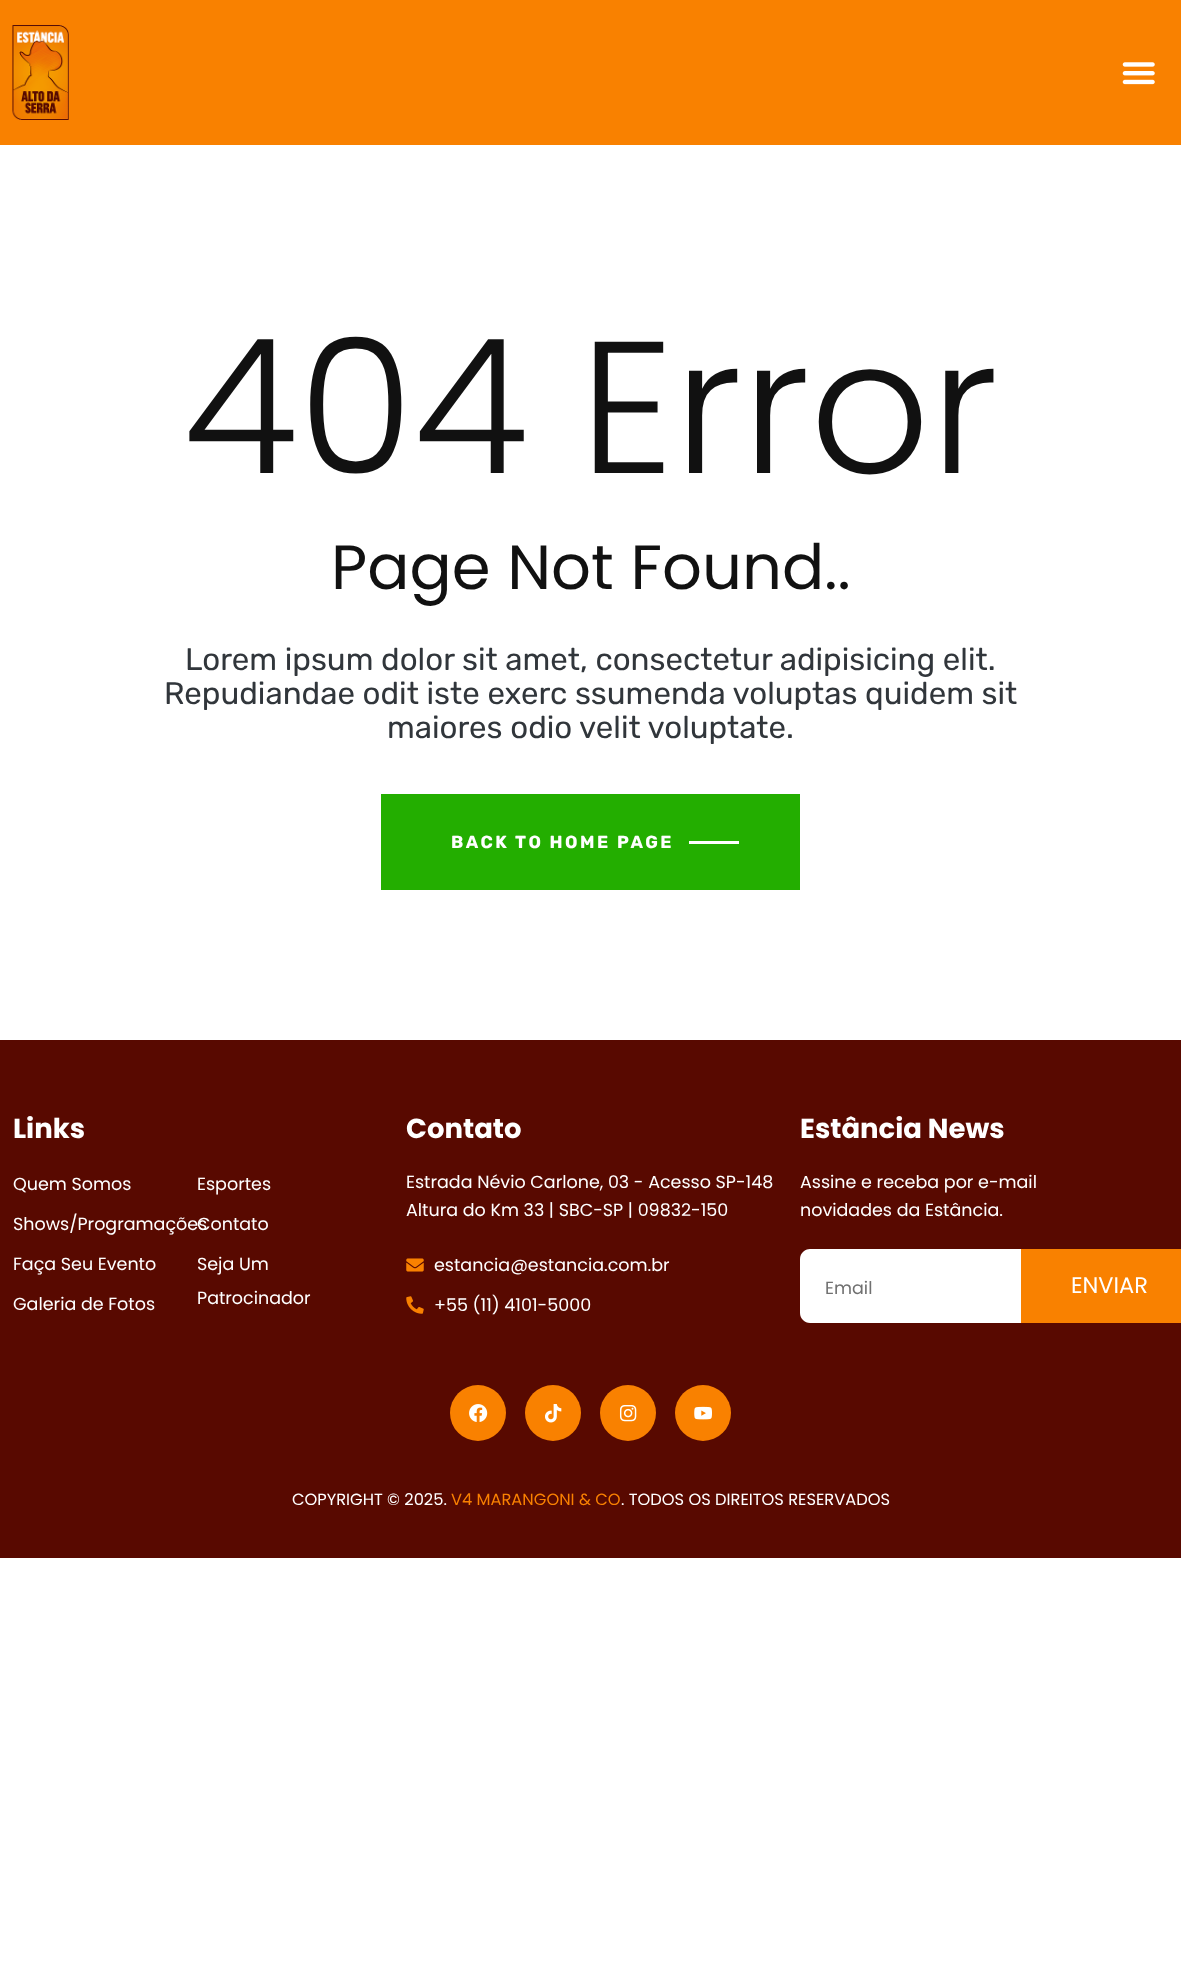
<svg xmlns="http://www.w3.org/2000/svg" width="1181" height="1976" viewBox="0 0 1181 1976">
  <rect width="100%" height="100%" fill="#fff"/>
  <path d="M0 0h1181v145H0z" fill="#f98100"/>
  <image x="12" y="25" width="57" height="95" href="img/1.png"/>
  <image x="1122" y="62" width="33" height="23" href="img/2.png"/>
  <path d="M381 794h419v96H381z" fill="#23ae00"/>
  <path d="M689 841h50v3H689z" fill="#fff"/>
  <path d="M0 1040h1181v518H0z" fill="#580900"/>
  <image x="406" y="1258" width="18" height="14" href="img/3.png"/>
  <image x="406" y="1296" width="18" height="18" href="img/4.png"/>
  <path d="M810 1249H1021V1323H810C804.5 1323 800 1318.5 800 1313V1259C800 1253.5 804.5 1249 810 1249Z" fill="#fff"/>
  <path d="M1021 1249h160v74H1021z" fill="#f98100"/>
  <circle cx="478" cy="1413" r="28" fill="#f98100"/>
  <image x="469" y="1404" width="19" height="18" href="img/5.png"/>
  <circle cx="553" cy="1413" r="28" fill="#f98100"/>
  <image x="545" y="1404" width="17" height="19" href="img/6.png"/>
  <circle cx="628" cy="1413" r="28" fill="#f98100"/>
  <image x="619" y="1405" width="18" height="17" href="img/7.png"/>
  <circle cx="703" cy="1413" r="28" fill="#f98100"/>
  <image x="694" y="1406" width="18" height="14" href="img/8.png"/>
  <text x="183" y="473" font-family="Poppins" font-size="187.5" font-weight="300" fill="#111">404 Error</text>
  <text x="331" y="589" font-family="Poppins" font-size="62.5" fill="#111">Page Not Found..</text>
  <g font-family="Rubik" font-size="31.25" fill="#31363b">
    <text x="185" y="670">Lorem ipsum dolor sit amet, consectetur adipisicing elit.</text>
    <text x="164" y="704">Repudiandae odit iste exerc ssumenda voluptas quidem sit</text>
    <text x="387" y="738">maiores odio velit voluptate.</text>
  </g>
  <text x="451" y="848" font-family="Rubik" font-size="17.5" font-weight="bold" letter-spacing="2.5" fill="#fff">BACK TO HOME PAGE</text>
  <text x="13" y="1138" font-family="Poppins" font-size="27.5" font-weight="bold" fill="#fff">Links</text>
  <g font-family="Poppins" font-size="17.5" fill="#fff">
    <text x="13" y="1190">Quem Somos</text>
    <text x="13" y="1230">Shows/Programações</text>
    <text x="13" y="1270">Faça Seu Evento</text>
    <text x="13" y="1310">Galeria de Fotos</text>
    <text x="197" y="1190">Esportes</text>
    <text x="197" y="1230">Contato</text>
    <text x="197" y="1270">Seja Um</text>
    <text x="197" y="1304">Patrocinador</text>
  </g>
  <text x="406" y="1138" font-family="Poppins" font-size="27.5" font-weight="bold" fill="#fff">Contato</text>
  <g font-family="Poppins" font-size="17.5" fill="#fff">
    <text x="406" y="1188">Estrada Névio Carlone, 03 - Acesso SP-148</text>
    <text x="406" y="1216">Altura do Km 33 | SBC-SP | 09832-150</text>
    <text x="434" y="1271">estancia@estancia.com.br</text>
    <text x="434" y="1311">+55 (11) 4101-5000</text>
  </g>
  <text x="800" y="1138" font-family="Poppins" font-size="27.5" font-weight="bold" fill="#fff">Estância News</text>
  <g font-family="Poppins" font-size="17.5" fill="#fff">
    <text x="800" y="1188">Assine e receba por e-mail</text>
    <text x="800" y="1216">novidades da Estância.</text>
  </g>
  <text x="825" y="1294" font-family="Poppins" font-size="17.5" fill="#707070">Email</text>
  <text x="1071" y="1293" font-family="Poppins" font-size="22.5" fill="#fff">ENVIAR</text>
  <text x="292" y="1505" font-family="Poppins" font-size="16.25" fill="#fff">COPYRIGHT © 2025.</text>
  <text x="451" y="1505" font-family="Poppins" font-size="16.25" fill="#f98100">V4 MARANGONI &amp; CO</text>
  <text x="621" y="1505" font-family="Poppins" font-size="16.25" fill="#fff">. TODOS OS DIREITOS RESERVADOS</text>
</svg>
